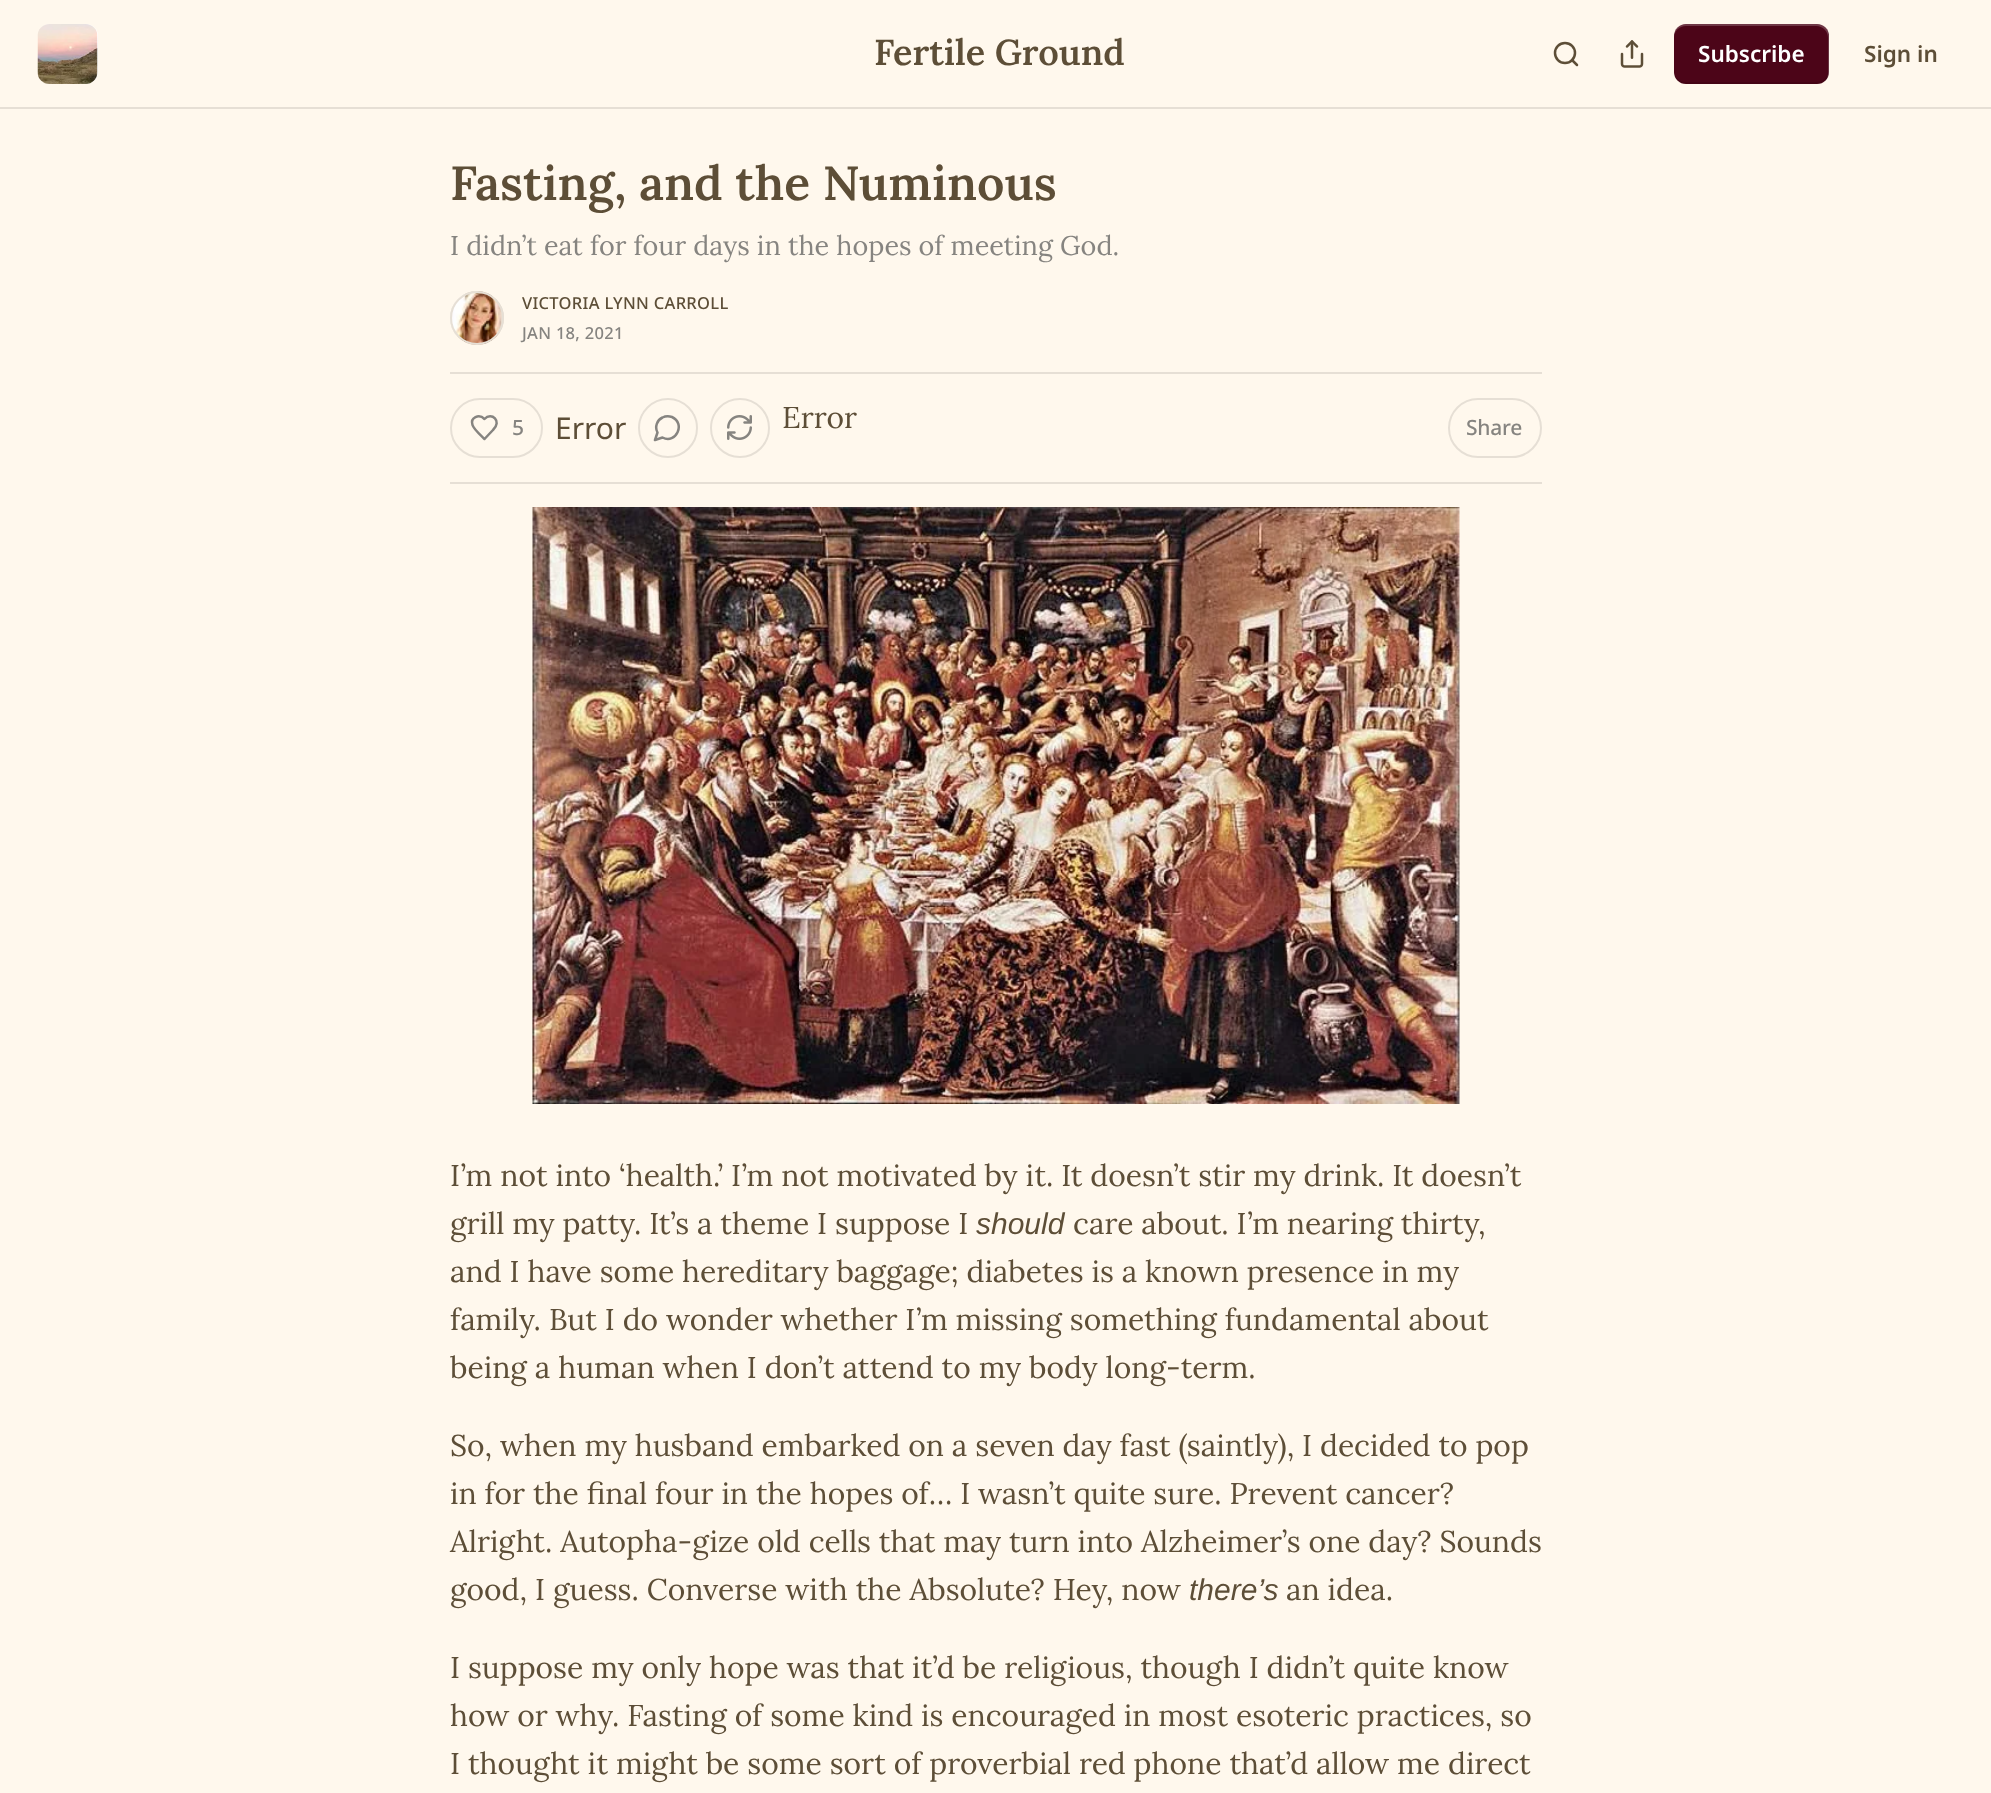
<svg xmlns="http://www.w3.org/2000/svg" width="1991" height="1793" viewBox="0 0 1991 1793">
  <rect width="100%" height="100%" fill="#fff8ed"/>
  <path d="M0 107h1991v2H0z" fill="#e6dfd5"/>
  <rect x="38" y="24" width="60" height="60" rx="12" fill="#fff"/>
  <image x="37" y="24" width="61" height="60" href="img/1.png"/>
  <circle cx="1565" cy="53" r="10" fill="none" stroke="#5d4e37" stroke-width="2.5"/>
  <path d="M1577 65L1572 60" fill="none" stroke="#5d4e37" stroke-width="2.5" stroke-linecap="round" stroke-linejoin="round"/>
  <image x="1620" y="40" width="24" height="28" href="img/2.png"/>
  <rect x="1674" y="24" width="155" height="60" rx="12" fill="#4c0518"/>
  <path d="M1674 70V72C1674 79 1679 84 1686 84H1817C1824 84 1829 79 1829 72V36C1829 34 1828 31 1827 29L1828 34V70C1828 77 1823 82 1816 82H1686C1679 82 1674 77 1674 70Z" fill="#0000001a"/>
  <path d="M1686 26H1816C1823 26 1828 31 1828 38V74L1827 79C1828 77 1829 74 1829 72V36C1829 29 1824 24 1817 24H1686C1679 24 1674 29 1674 36V38C1674 31 1679 26 1686 26Z" fill="#ffffff33"/>
  <circle cx="477" cy="318" r="26" fill="none" stroke="#e6dfd5" stroke-width="2"/>
  <image x="450" y="291" width="54" height="54" href="img/3.png"/>
  <circle cx="477" cy="318" r="26" fill="none" stroke="#e6dfd5" stroke-width="2"/>
  <path d="M450 372h1092v2H450z" fill="#e6dfd5"/>
  <path d="M450 482h1092v2H450z" fill="#e6dfd5"/>
  <rect x="451" y="399" width="91" height="58" rx="29" fill="none" stroke="#e6dfd5" stroke-width="2"/>
  <path d="M493 430C502.5 421 491.5 411.5 484.5 419C479 413.5 470 417.5 472.5 425C473.5 429 481.5 436 484.5 439Z" fill="none" stroke="#868480" stroke-width="2.5" stroke-linecap="round" stroke-linejoin="round"/>
  <circle cx="668" cy="428" r="29" fill="none" stroke="#e6dfd5" stroke-width="2"/>
  <path d="M662.5 437.5C676 444.5 686 423.5 672 417C669 416 665.5 416 662.5 417.5C657 420 654.5 427 657.5 432.5L655 440Z" fill="none" stroke="#868480" stroke-width="2.5" stroke-linecap="round" stroke-linejoin="round"/>
  <circle cx="740" cy="428" r="29" fill="none" stroke="#e6dfd5" stroke-width="2"/>
  <image x="727" y="415" width="25" height="25" href="img/4.png"/>
  <rect x="1449" y="399" width="92" height="58" rx="29" fill="none" stroke="#e6dfd5" stroke-width="2"/>
  <image x="532" y="507" width="928" height="597" href="img/5.png"/>
  <text x="874" y="65" font-family="Lora" font-size="36" font-weight="600" fill="#5d4e37">Fertile Ground</text>
  <text x="1698" y="62" font-family="Noto Sans" font-size="22.5" font-weight="600" fill="#fff">Subscribe</text>
  <text x="1864" y="62" font-family="Noto Sans" font-size="22.5" font-weight="600" fill="#5d4e37">Sign in</text>
  <text x="450" y="200" font-family="Lora" font-size="48" font-weight="600" fill="#5d4e37">Fasting, and the Numinous</text>
  <text x="450" y="255" font-family="Lora" font-size="27" fill="#868480">I didn’t eat for four days in the hopes of meeting God.</text>
  <text x="522" y="309" font-family="Noto Sans" font-size="16.5" font-weight="500" letter-spacing="0.3" fill="#5d4e37">VICTORIA LYNN CARROLL</text>
  <text x="522" y="339" font-family="Noto Sans" font-size="16.5" font-weight="500" letter-spacing="0.3" fill="#868480">JAN 18, 2021</text>
  <text x="512" y="435" font-family="Noto Sans" font-size="21" font-weight="500" letter-spacing="-0.25" fill="#868480">5</text>
  <text x="555" y="439" font-family="Noto Sans" font-size="30" fill="#5d4e37">Error</text>
  <text x="782" y="428" font-family="Lora" font-size="30" fill="#5d4e37">Error</text>
  <text x="1466" y="435" font-family="Noto Sans" font-size="21" font-weight="500" letter-spacing="-0.25" fill="#868480">Share</text>
  <g font-family="Lora" font-size="30" fill="#5d4e37">
    <text x="450" y="1186">I’m not into ‘health.’ I’m not motivated by it. It doesn’t stir my drink. It doesn’t</text>
    <text x="450" y="1234">grill my patty. It’s a theme I suppose I</text>
  </g>
  <text x="976" y="1234" font-family="Liberation Sans" font-size="30" font-style="italic" fill="#5d4e37">should</text>
  <g font-family="Lora" font-size="30" fill="#5d4e37">
    <text x="1073" y="1234">care about. I’m nearing thirty,</text>
    <text x="450" y="1282">and I have some hereditary baggage; diabetes is a known presence in my</text>
    <text x="450" y="1330">family. But I do wonder whether I’m missing something fundamental about</text>
    <text x="450" y="1378">being a human when I don’t attend to my body long-term.</text>
    <text x="450" y="1456">So, when my husband embarked on a seven day fast (saintly), I decided to pop</text>
    <text x="450" y="1504">in for the final four in the hopes of… I wasn’t quite sure. Prevent cancer?</text>
    <text x="450" y="1552">Alright. Autopha-gize old cells that may turn into Alzheimer’s one day? Sounds</text>
    <text x="450" y="1600">good, I guess. Converse with the Absolute? Hey, now</text>
  </g>
  <text x="1189" y="1600" font-family="Liberation Sans" font-size="30" font-style="italic" fill="#5d4e37">there’s</text>
  <g font-family="Lora" font-size="30" fill="#5d4e37">
    <text x="1286" y="1600">an idea.</text>
    <text x="450" y="1678">I suppose my only hope was that it’d be religious, though I didn’t quite know</text>
    <text x="450" y="1726">how or why. Fasting of some kind is encouraged in most esoteric practices, so</text>
    <text x="450" y="1774">I thought it might be some sort of proverbial red phone that’d allow me direct</text>
  </g>
</svg>
